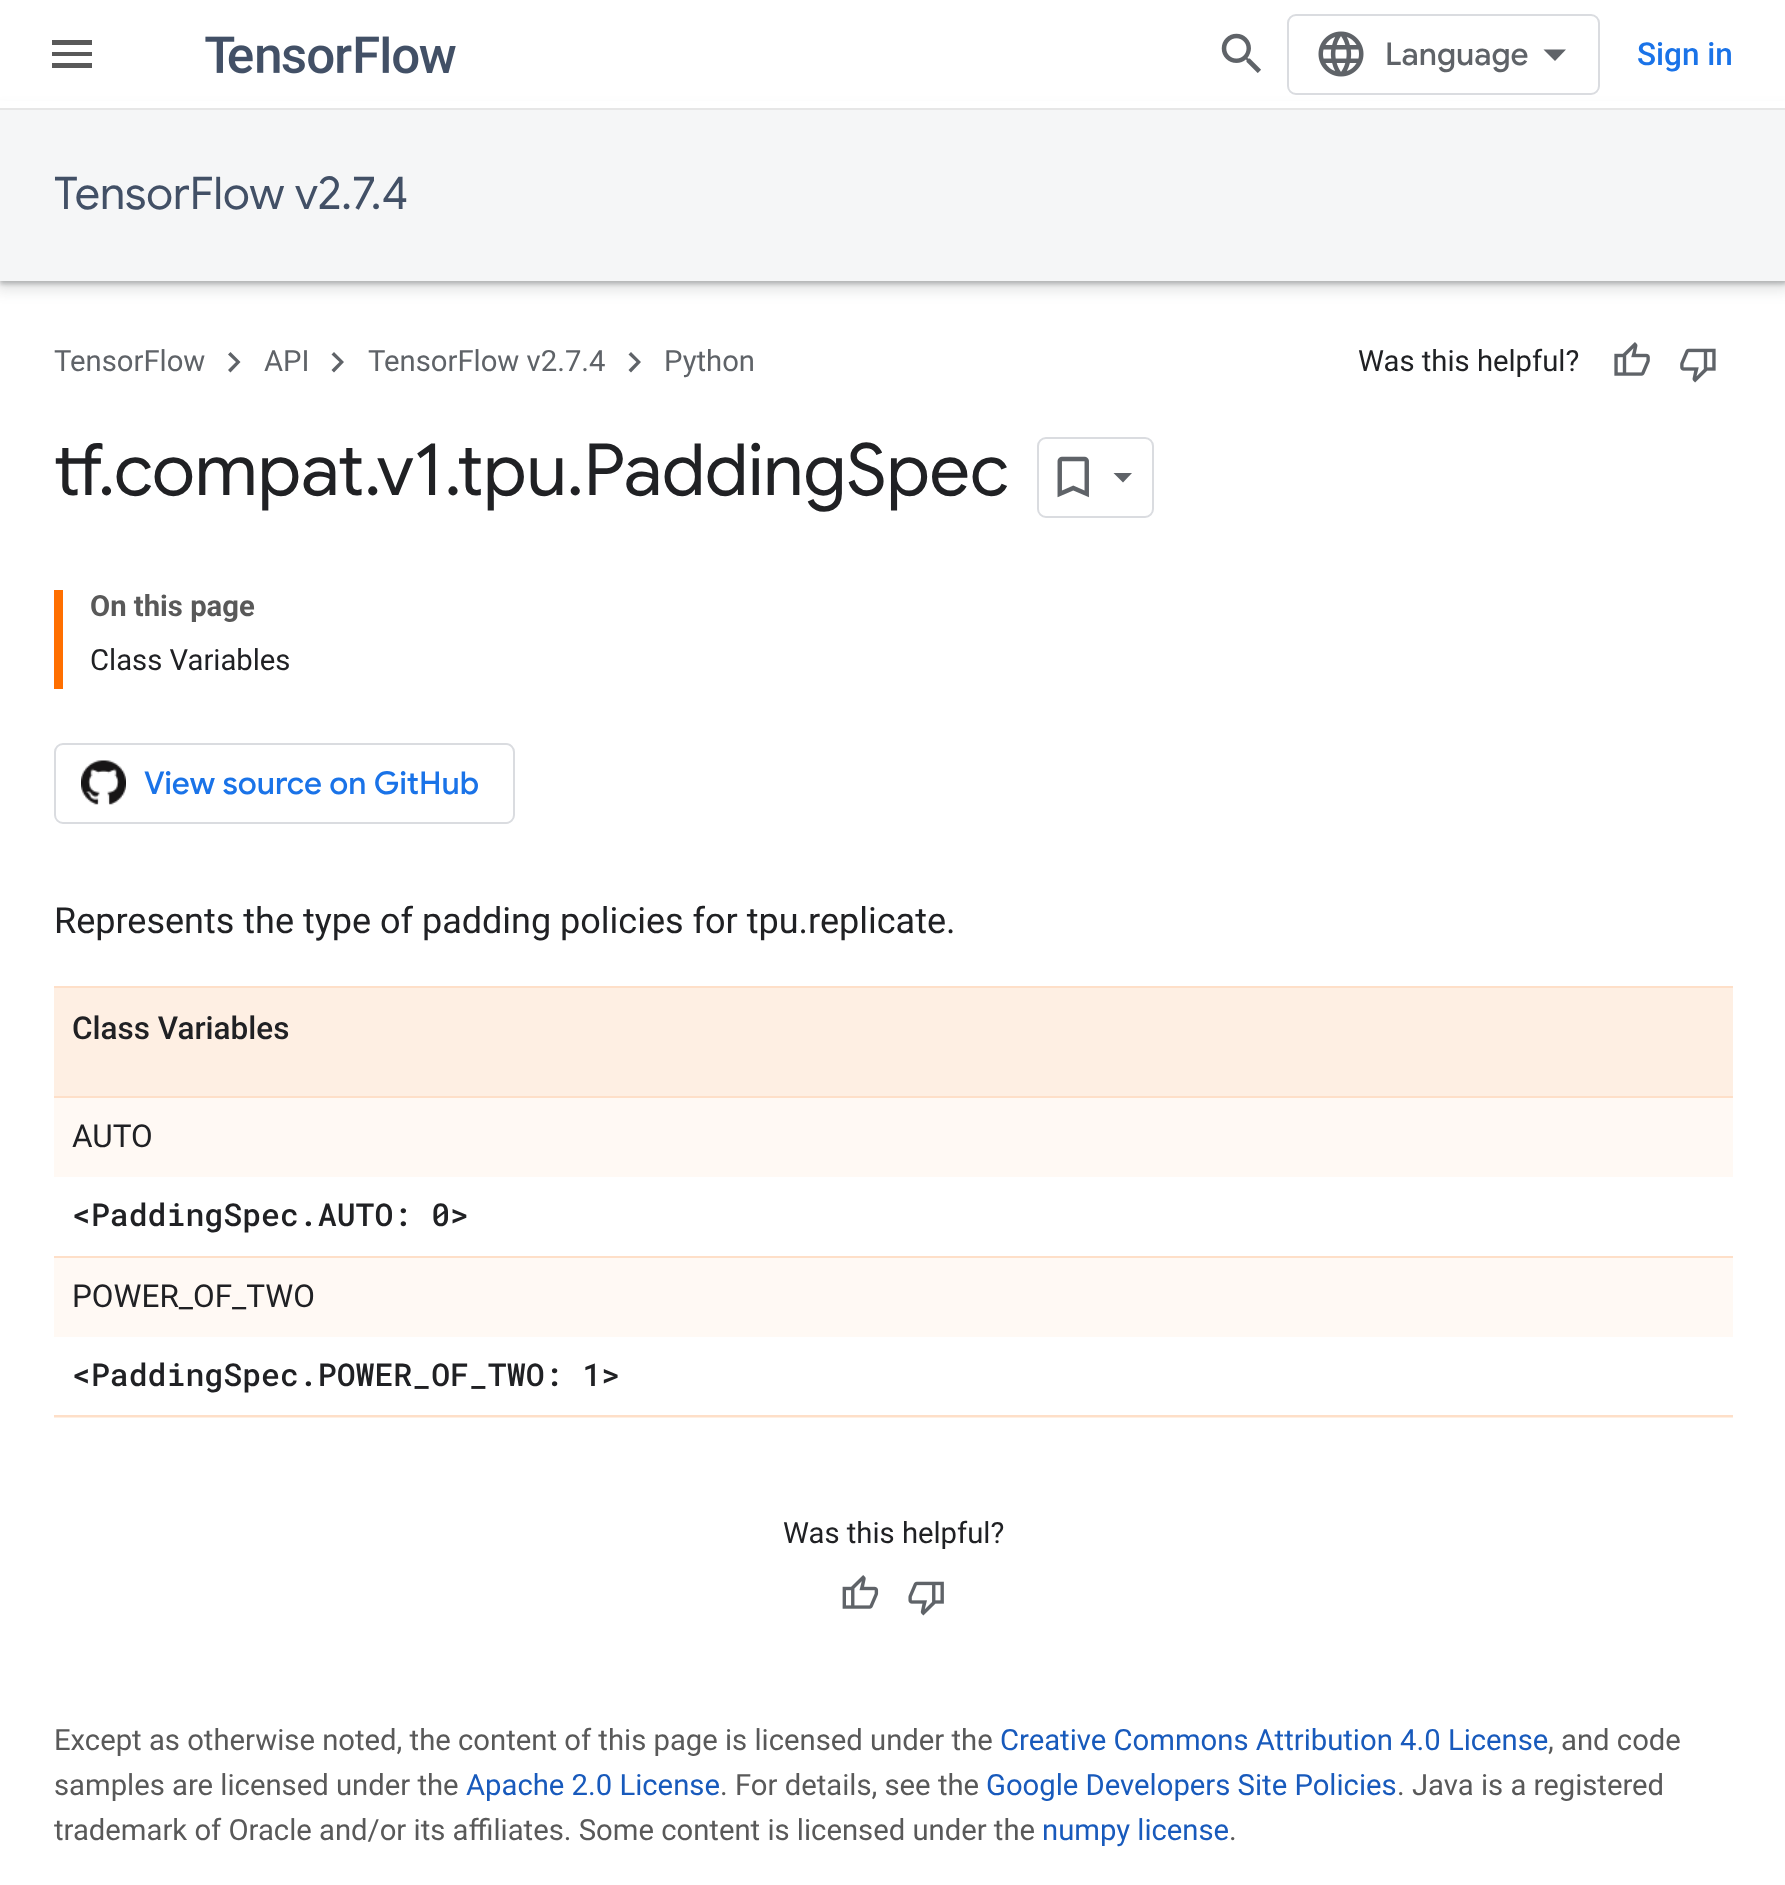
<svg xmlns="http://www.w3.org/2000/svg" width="1785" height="1885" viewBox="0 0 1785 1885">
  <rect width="100%" height="100%" fill="#fff"/>
  <path d="M-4 110h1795v180H-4z" fill="#3c404326" filter="blur(7px)"/>
  <path d="M0 113h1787v171H0z" fill="#3c40434d" filter="blur(2px)"/>
  <path d="M0 101h1785v7H0z" fill="#fff"/>
  <path d="M0 108h1785v2H0z" fill="#e6e6e6"/>
  <path d="M52 40H92V45H52ZM52 56V52H92V56ZM52 68V63H92V68Z" fill="#595959"/>
  <image x="205" y="36" width="251" height="38" href="img/1.png"/>
  <image x="1221" y="33" width="40" height="40" href="img/2.png"/>
  <rect x="1288" y="15" width="311" height="79" rx="8" fill="none" stroke="#dadce0" stroke-width="2"/>
  <image x="1318" y="31" width="46" height="46" href="img/3.png"/>
  <path d="M1555 61L1543.5 49.5H1566Z" fill="#5f6368"/>
  <path d="M0 110h1785v171H0z" fill="#f5f6f7"/>
  <path d="M230.5 352L240.5 362L230.5 372.5L228 370L236 362L228 354.5Z" fill="#5f6368"/>
  <path d="M334 352L344 362L334 372.5L331.5 370L339.5 362L331.5 354.5Z" fill="#5f6368"/>
  <path d="M631 352L641 362L631 372.5L628.5 370L636.5 362L628.5 354.5Z" fill="#5f6368"/>
  <image x="1614" y="342" width="36" height="34" href="img/4.png"/>
  <image x="1680" y="348" width="36" height="35" href="img/5.png"/>
  <rect x="1038" y="438" width="115" height="79" rx="8" fill="none" stroke="#dadce0" stroke-width="2"/>
  <image x="1057" y="456" width="32" height="42" href="img/6.png"/>
  <path d="M1113.5 473H1132L1123 482.5Z" fill="#5f6368"/>
  <path d="M54 590h9v99H54z" fill="#ff6f00"/>
  <rect x="55" y="744" width="459" height="79" rx="8" fill="none" stroke="#dadce0" stroke-width="2"/>
  <image x="81" y="760" width="45" height="45" href="img/7.png"/>
  <path d="M54 988h1679v108H54z" fill="#feefe3"/>
  <path d="M54 986h1679v2H54z" fill="#fedfc8"/>
  <path d="M54 1096h1679v2H54z" fill="#fedfc8"/>
  <path d="M54 1256h1679v2H54z" fill="#fedfc8"/>
  <path d="M54 1098h1679v79H54z" fill="#fff9f4"/>
  <path d="M54 1417h1679v1H54z" fill="#feefe3"/>
  <path d="M54 1415h1679v2H54z" fill="#fedfc8"/>
  <path d="M54 1258h1679v79H54z" fill="#fff9f4"/>
  <image x="842" y="1575" width="37" height="34" href="img/8.png"/>
  <image x="908" y="1581" width="36" height="35" href="img/9.png"/>
  <text x="1385" y="65" font-family="Google Sans" font-size="31.5" font-weight="500" fill="#5f6368">Language</text>
  <text x="1637" y="65" font-family="Roboto" font-size="31.5" font-weight="500" fill="#1a73e8">Sign in</text>
  <text x="54" y="209" font-family="Google Sans" font-size="45" fill="#425066">TensorFlow v2.7.4</text>
  <g font-family="Roboto" font-size="29.25" fill="#5f6368">
    <text x="54" y="371">TensorFlow</text>
    <text x="264" y="371">API</text>
    <text x="368" y="371">TensorFlow v2.7.4</text>
    <text x="664" y="371">Python</text>
  </g>
  <text x="1358" y="371" font-family="Roboto" font-size="29.25" fill="#202124">Was this helpful?</text>
  <g font-family="Google Sans" font-size="72" fill="#202124">
    <text x="54" y="495">tf</text>
    <text x="98" y="495">.compat.v1.tpu.PaddingSpec</text>
  </g>
  <text x="90" y="616" font-family="Roboto" font-size="29.25" font-weight="bold" fill="#595959">On this page</text>
  <text x="90" y="670" font-family="Roboto" font-size="29.25" fill="#202124">Class Variables</text>
  <text x="144" y="794" font-family="Google Sans" font-size="31.5" font-weight="500" fill="#1a73e8">View source on GitHub</text>
  <text x="54" y="933" font-family="Roboto" font-size="36" fill="#202124">Represents the type of padding policies for tpu.replicate.</text>
  <text x="72" y="1039" font-family="Roboto" font-size="31.5" font-weight="500" fill="#202124">Class Variables</text>
  <text x="72" y="1147" font-family="Roboto" font-size="31.5" fill="#202124">AUTO</text>
  <text x="72" y="1226" font-family="Roboto Mono" font-size="31.5" font-weight="500" fill="#202124">&lt;PaddingSpec.AUTO: 0&gt;</text>
  <text x="72" y="1307" font-family="Roboto" font-size="31.5" fill="#202124">POWER_OF_TWO</text>
  <text x="72" y="1386" font-family="Roboto Mono" font-size="31.5" font-weight="500" fill="#202124">&lt;PaddingSpec.POWER_OF_TWO: 1&gt;</text>
  <text x="783" y="1543" font-family="Roboto" font-size="29.25" fill="#202124">Was this helpful?</text>
  <text x="54" y="1750" font-family="Roboto" font-size="29.25" fill="#595959">Except as otherwise noted, the content of this page is licensed under the</text>
  <text x="1000" y="1750" font-family="Roboto" font-size="29.25" fill="#185abc">Creative Commons Attribution 4.0 License</text>
  <g font-family="Roboto" font-size="29.25" fill="#595959">
    <text x="1548" y="1750">, and code</text>
    <text x="54" y="1795">samples are licensed under the</text>
  </g>
  <text x="466" y="1795" font-family="Roboto" font-size="29.25" fill="#185abc">Apache 2.0 License</text>
  <text x="720" y="1795" font-family="Roboto" font-size="29.25" fill="#595959">. For details, see the</text>
  <text x="986" y="1795" font-family="Roboto" font-size="29.25" fill="#185abc">Google Developers Site Policies</text>
  <g font-family="Roboto" font-size="29.25" fill="#595959">
    <text x="1397" y="1795">. Java is a registered</text>
    <text x="54" y="1840">trademark of Oracle and/or its affiliates. Some content is licensed under the</text>
  </g>
  <text x="1042" y="1840" font-family="Roboto" font-size="29.25" fill="#185abc">numpy license</text>
  <text x="1229" y="1840" font-family="Roboto" font-size="29.25" fill="#595959">.</text>
</svg>
